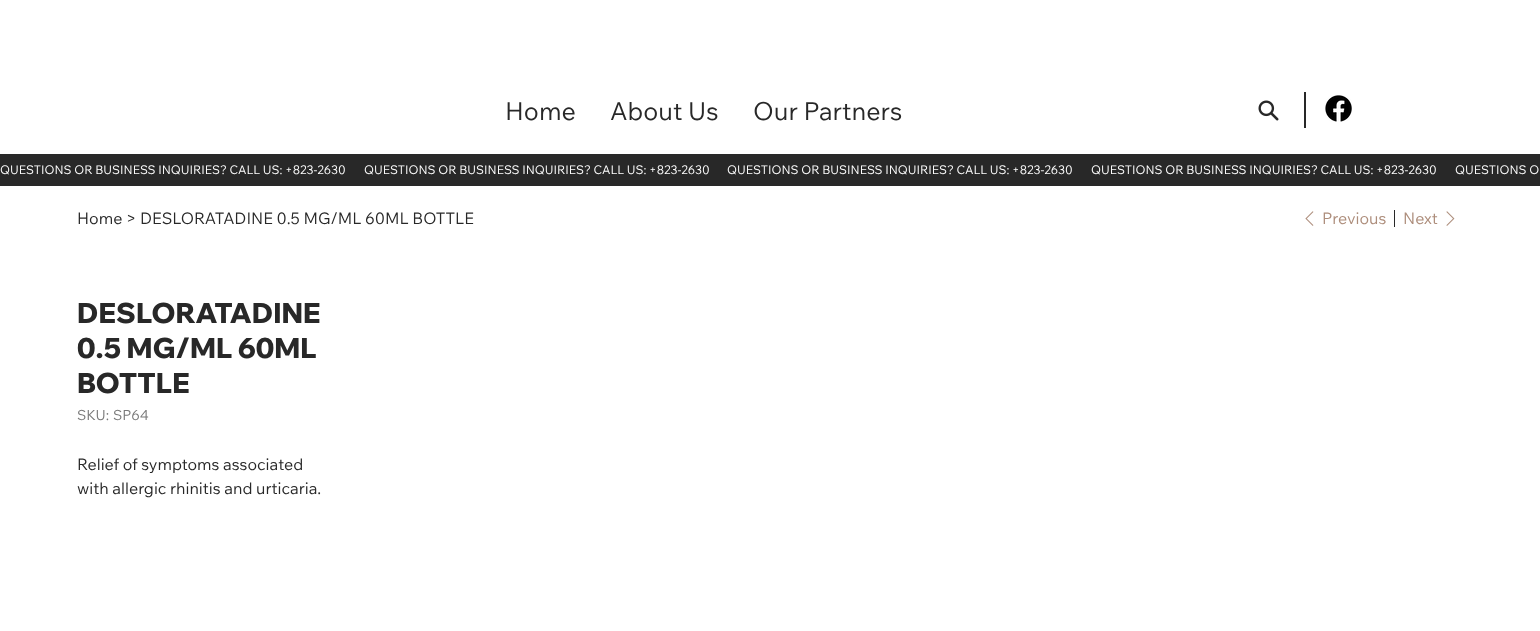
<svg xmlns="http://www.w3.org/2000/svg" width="1540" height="631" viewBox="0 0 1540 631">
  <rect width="100%" height="100%" fill="#fff"/>
  <image x="1258" y="100" width="21" height="21" href="img/1.png"/>
  <path d="M1304 92h2v36H1304z" fill="#282828"/>
  <image x="1325" y="95" width="27" height="27" href="img/2.png"/>
  <path d="M0 154h1540v32H0z" fill="#282828"/>
  <image x="1305" y="211" width="9" height="15" href="img/3.png"/>
  <path d="M1394 210h1v17H1394z" fill="#282828"/>
  <image x="1446" y="211" width="9" height="15" href="img/4.png"/>
  <g font-family="Wix Madefor Text" font-size="25" fill="#282828">
    <text x="505" y="120">Home</text>
    <text x="610" y="120">About Us</text>
    <text x="753" y="120">Our Partners</text>
  </g>
  <g font-family="Wix Madefor Text" font-size="12" fill="#fff">
    <text x="0" y="174">QUESTIONS OR BUSINESS INQUIRIES? CALL US: +823-2630</text>
    <text x="364" y="174">QUESTIONS OR BUSINESS INQUIRIES? CALL US: +823-2630</text>
    <text x="727" y="174">QUESTIONS OR BUSINESS INQUIRIES? CALL US: +823-2630</text>
    <text x="1091" y="174">QUESTIONS OR BUSINESS INQUIRIES? CALL US: +823-2630</text>
    <text x="1455" y="174">QUESTIONS O</text>
  </g>
  <g font-family="Wix Madefor Text" font-size="16" fill="#282828">
    <text x="77" y="224">Home</text>
    <text x="126" y="224">&gt;</text>
    <text x="140" y="224">DESLORATADINE 0.5 MG/ML 60ML BOTTLE</text>
  </g>
  <g font-family="Wix Madefor Text" font-size="16" fill="#ad8d7b">
    <text x="1322" y="224">Previous</text>
    <text x="1403" y="224">Next</text>
  </g>
  <g font-family="Wix Madefor Display" font-size="28" font-weight="800" fill="#282828">
    <text x="77" y="323">DESLORATADINE</text>
    <text x="77" y="358">0.5 MG/ML 60ML</text>
    <text x="77" y="393">BOTTLE</text>
  </g>
  <g font-family="Wix Madefor Text" font-size="14" fill="#797979">
    <text x="77" y="420">SKU:</text>
    <text x="113" y="420">SP64</text>
  </g>
  <g font-family="Wix Madefor Text" font-size="16" fill="#282828">
    <text x="77" y="470">Relief of symptoms associated</text>
    <text x="77" y="494">with allergic rhinitis and urticaria.</text>
  </g>
</svg>
